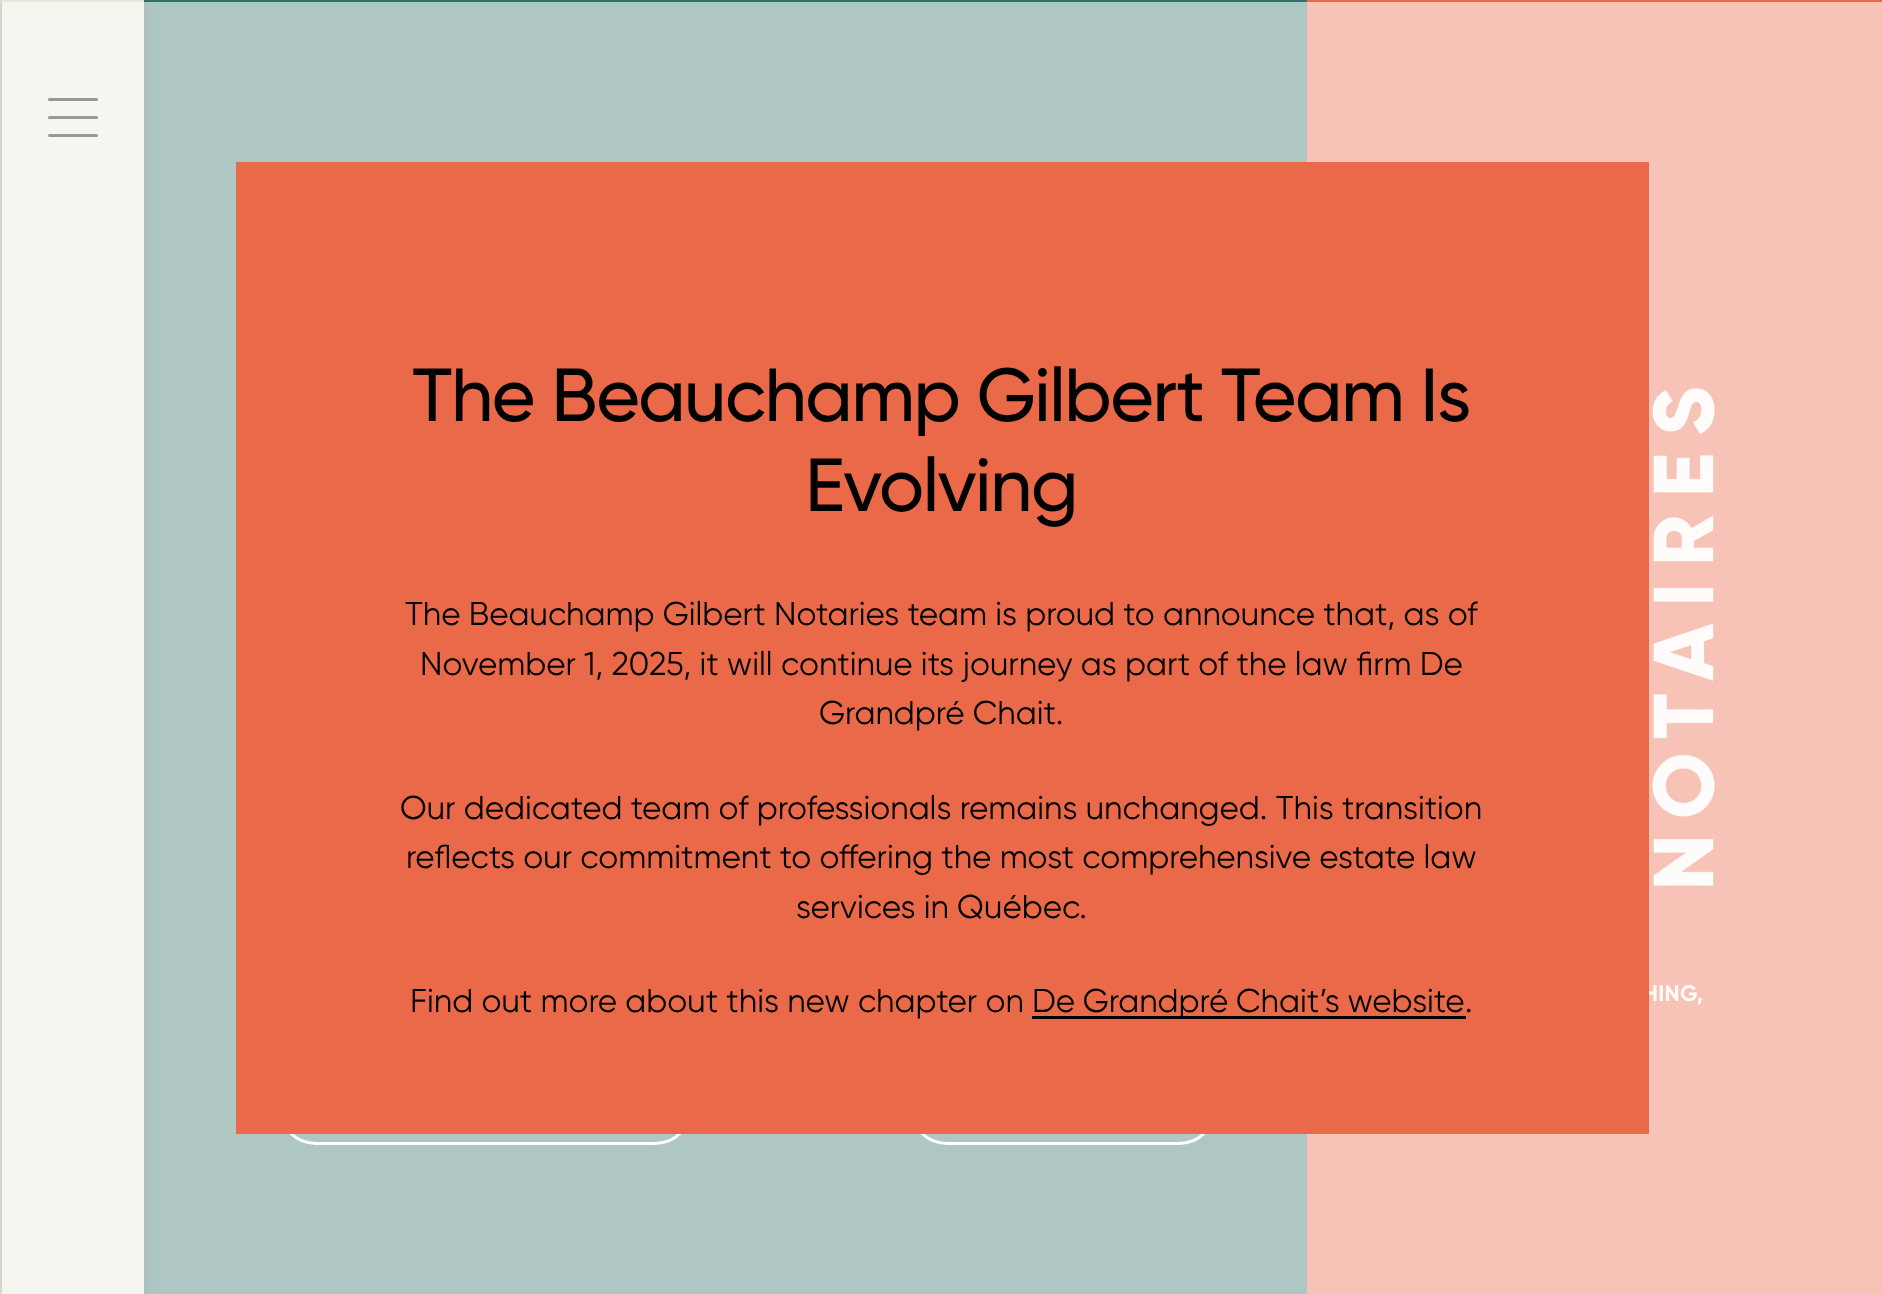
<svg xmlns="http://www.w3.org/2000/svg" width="1882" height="1294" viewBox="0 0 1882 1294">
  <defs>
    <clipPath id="clip1"><path d="M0 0H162V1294H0ZM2 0H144V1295H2Z" clip-rule="evenodd"/></clipPath>
  </defs>
  <rect width="100%" height="100%" fill="#35736a"/>
  <path d="M0 0h2v1294H0z" fill="#e9e7da"/>
  <g clip-path="url(#clip1)">
    <path d="M3 0h143v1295H3z" fill="#00000040" filter="blur(5px)"/>
  </g>
  <path d="M2 0h142v1294H2z" fill="#e9e7da"/>
  <rect x="48" y="98" width="50" height="3" rx="1.5" fill="#000"/>
  <rect x="48" y="116" width="50" height="3" rx="1.5" fill="#000"/>
  <rect x="48" y="134" width="50" height="3" rx="1.5" fill="#000"/>
  <path d="M1307 0h575v1294H1307z" fill="#e96949"/>
  <image x="1652" y="388" width="63" height="498" href="img/1.png"/>
  <rect x="279.5" y="1050.5" width="412" height="93" rx="36.5" fill="none" stroke="#fff" stroke-width="3"/>
  <rect x="910.5" y="1050.5" width="305" height="93" rx="36.5" fill="none" stroke="#fff" stroke-width="3"/>
  <text x="1643" y="1001" font-family="Gilroy" font-size="22.5" font-weight="bold" letter-spacing="0.25" fill="#fdf6f4">HING,</text>
  <path d="M2 2h1880v1292H2z" fill="#ffffff99"/>
  <path d="M236 162h1413v972H236z" fill="#e96949"/>
  <text x="1465" y="1012" font-family="Gilroy" font-size="33" fill="#000">.</text>
  <path d="M1032 1016h434v3H1032z" fill="#000"/>
  <g font-family="Gilroy" font-size="33" fill="#000">
    <text x="1032" y="1012" word-spacing="-0.5">De Grandpré Chait’s website</text>
    <text x="410" y="1012">Find out more about this new chapter on</text>
    <text x="796" y="918">services in Québec.</text>
    <text x="406" y="868">reflects our commitment to offering the most comprehensive estate law</text>
    <text x="400" y="819">Our dedicated team of professionals remains unchanged. This transition</text>
    <text x="819" y="724">Grandpré Chait.</text>
    <text x="420" y="675">November 1, 2025, it will continue its journey as part of the law firm De</text>
    <text x="405" y="625">The Beauchamp Gilbert Notaries team is proud to announce that, as of</text>
  </g>
  <g font-family="Gilroy" font-size="75" font-weight="500" letter-spacing="-1.5" fill="#000">
    <text x="805" y="511">Evolving</text>
    <text x="412" y="421">The Beauchamp Gilbert Team Is</text>
  </g>
</svg>
